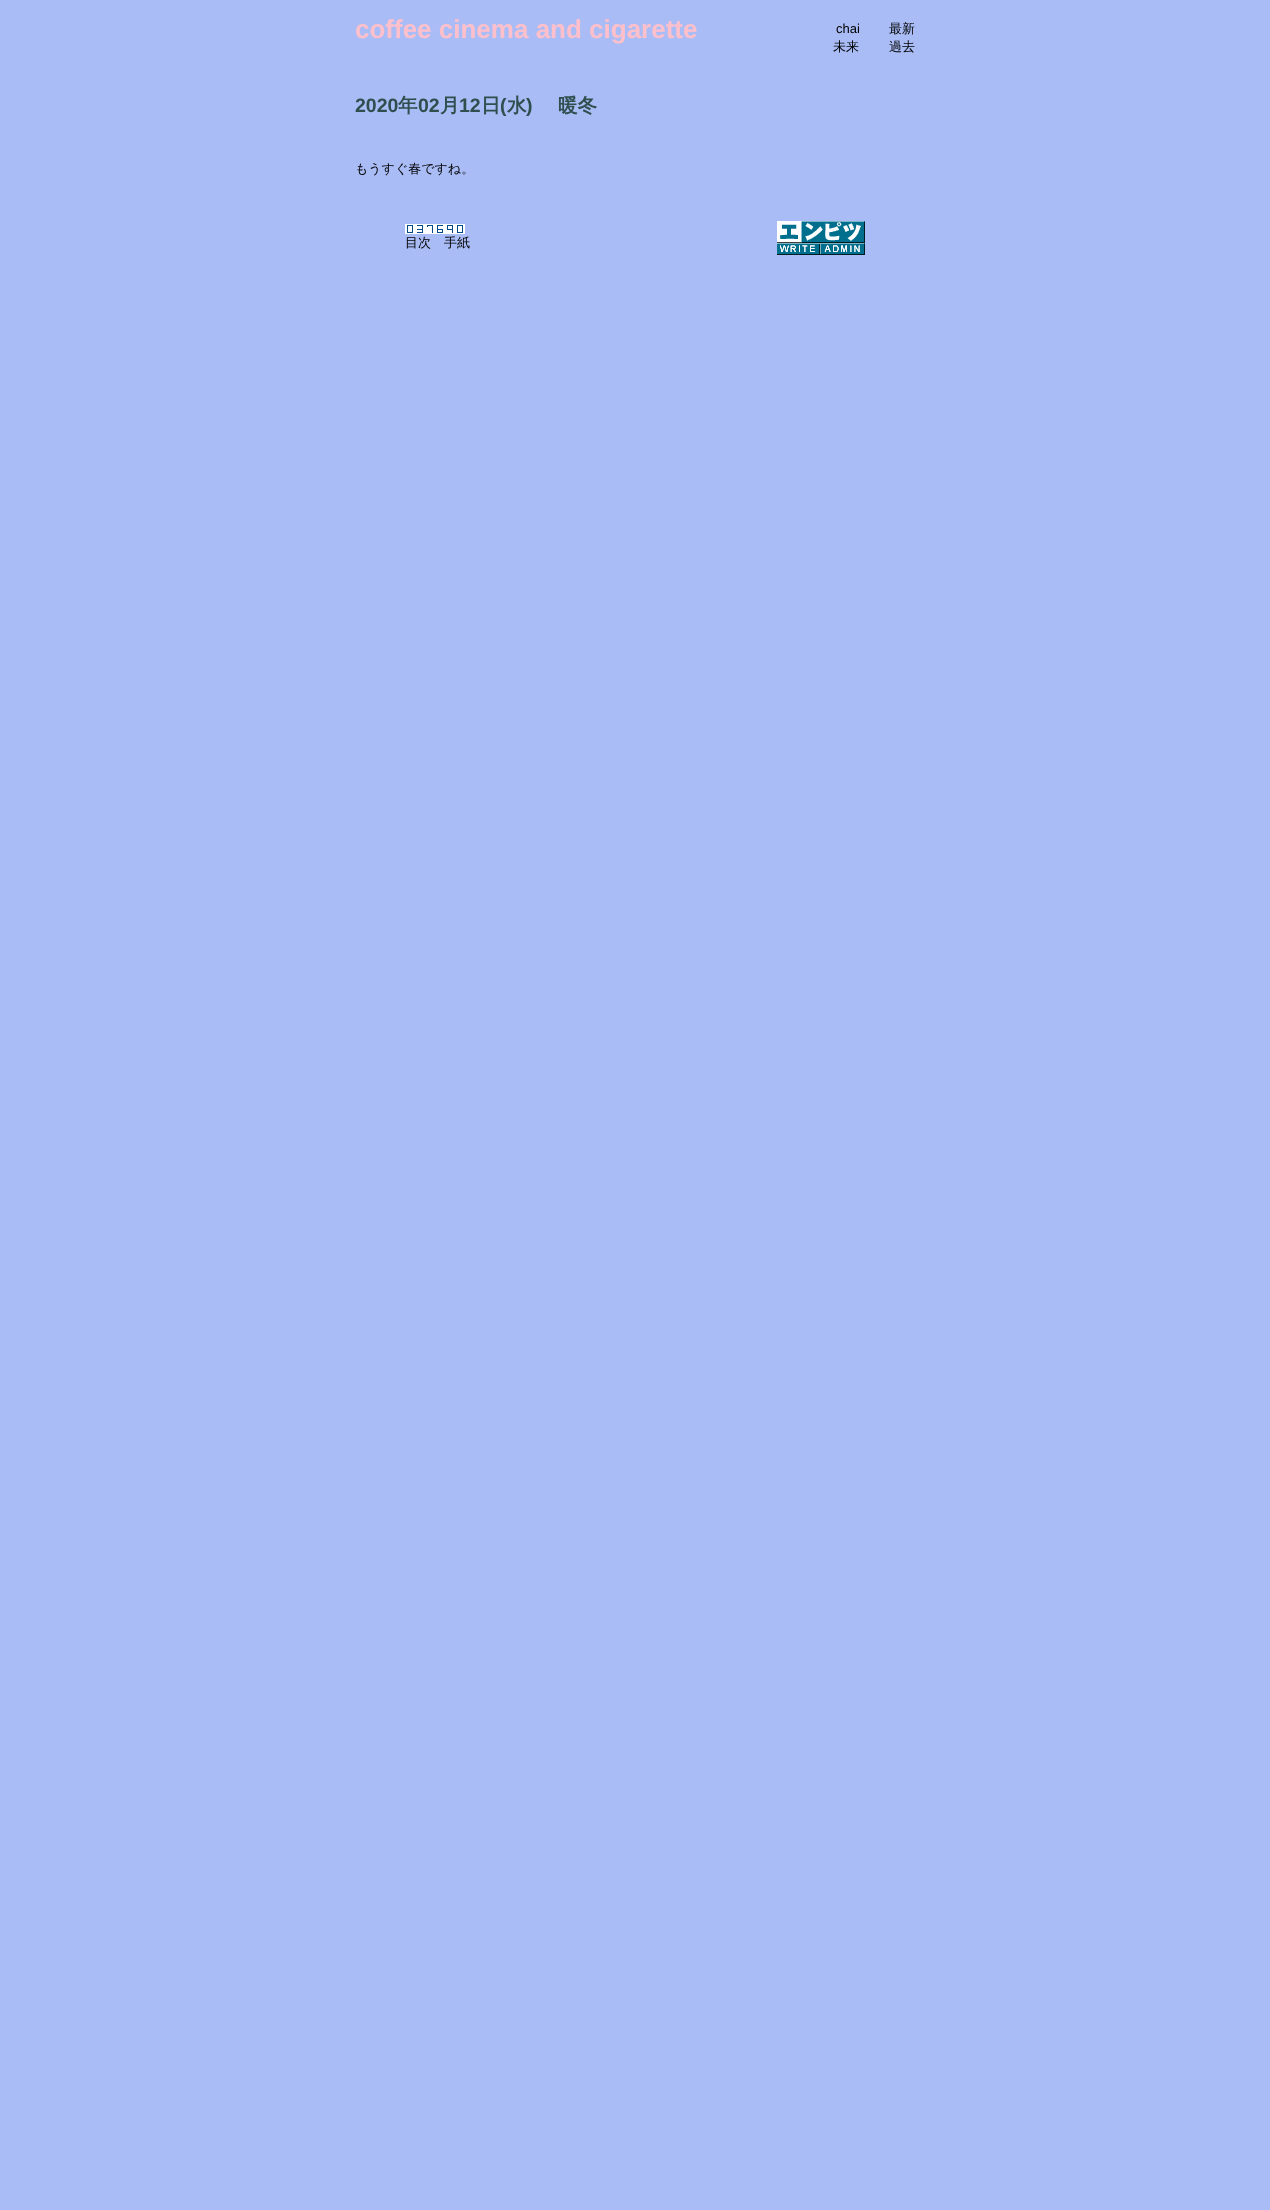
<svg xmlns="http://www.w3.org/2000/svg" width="1270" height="2210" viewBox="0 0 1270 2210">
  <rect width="100%" height="100%" fill="#a9bcf5"/>
  <image x="405" y="224" width="60" height="10" href="img/1.png"/>
  <image x="777" y="221" width="88" height="34" href="img/2.png"/>
  <text x="355" y="38" font-family="Liberation Sans" font-size="26" font-weight="bold" fill="#ffc0cb">coffee cinema and cigarette</text>
  <text x="836" y="33" font-family="Liberation Sans" font-size="13" fill="#000">chai</text>
  <g font-family="WenQuanYi Zen Hei" font-size="13" font-weight="500" fill="#000">
    <text x="889" y="33">最新</text>
    <text x="833" y="51">未来</text>
    <text x="889" y="51">過去</text>
  </g>
  <text x="355" y="112" font-family="Liberation Sans" font-size="19.5" font-weight="bold" fill="#2f4f4f">2020</text>
  <text x="398" y="112" font-family="WenQuanYi Zen Hei" font-size="19.5" font-weight="bold" fill="#2f4f4f">年</text>
  <text x="418" y="112" font-family="Liberation Sans" font-size="19.5" font-weight="bold" fill="#2f4f4f">02</text>
  <text x="440" y="112" font-family="WenQuanYi Zen Hei" font-size="19.5" font-weight="bold" fill="#2f4f4f">月</text>
  <text x="459" y="112" font-family="Liberation Sans" font-size="19.5" font-weight="bold" fill="#2f4f4f">12</text>
  <text x="481" y="112" font-family="WenQuanYi Zen Hei" font-size="19.5" font-weight="bold" fill="#2f4f4f">日</text>
  <text x="500" y="112" font-family="Liberation Sans" font-size="19.5" font-weight="bold" fill="#2f4f4f">(</text>
  <text x="507" y="112" font-family="WenQuanYi Zen Hei" font-size="19.5" font-weight="bold" fill="#2f4f4f">水</text>
  <text x="526" y="112" font-family="Liberation Sans" font-size="19.5" font-weight="bold" fill="#2f4f4f">)</text>
  <text x="558" y="112" font-family="WenQuanYi Zen Hei" font-size="19.5" font-weight="bold" fill="#2f4f4f">暖冬</text>
  <g font-family="WenQuanYi Zen Hei" font-size="13" font-weight="500" fill="#000">
    <text x="355" y="173">もうすぐ春ですね。</text>
    <text x="405" y="247">目次</text>
    <text x="444" y="247">手紙</text>
  </g>
</svg>
